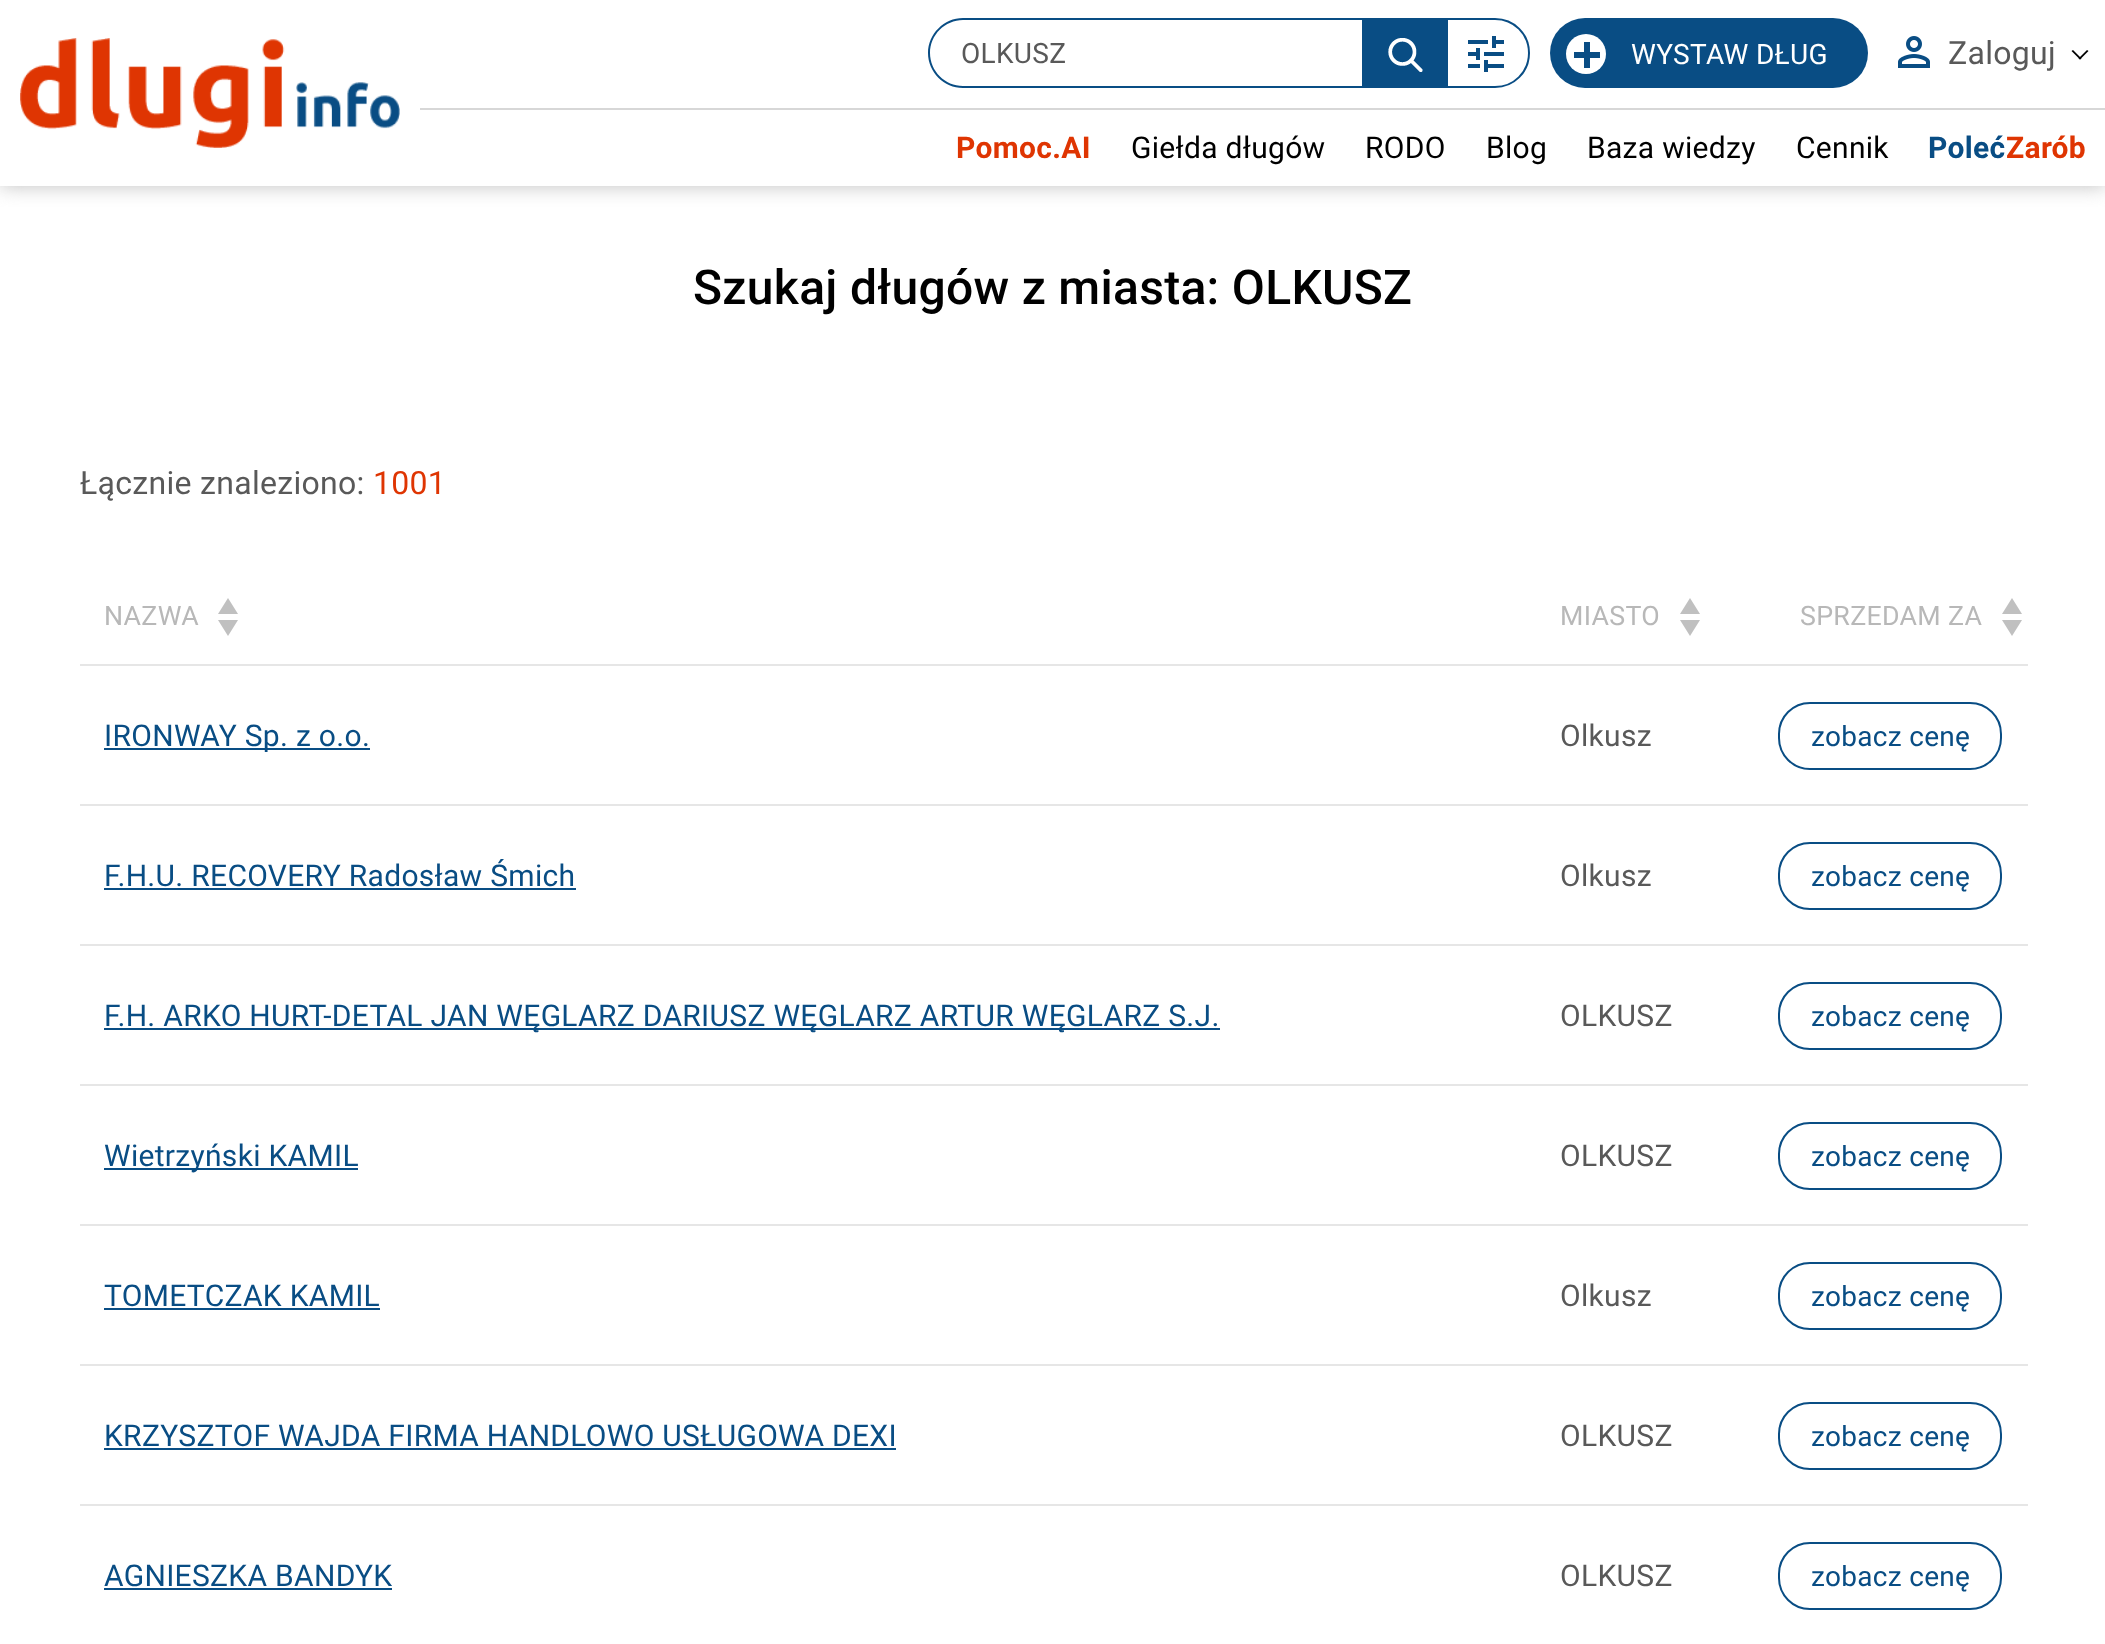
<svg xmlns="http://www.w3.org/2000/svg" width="2105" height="1644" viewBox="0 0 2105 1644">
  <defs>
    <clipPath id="clip1"><path d="M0 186h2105v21H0z"/></clipPath>
  </defs>
  <rect width="100%" height="100%" fill="#fff"/>
  <g clip-path="url(#clip1)">
    <path d="M0 0h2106v186H0z" fill="#c0c0c0" filter="blur(10px)"/>
  </g>
  <path d="M420 108h1685v2H420z" fill="#d7d7d7"/>
  <image x="20" y="38" width="380" height="110" href="img/1.png"/>
  <path d="M963 18H1362V88H963C944 88 928 72 928 53C928 34 944 18 963 18ZM963 20H1362V86H963C945 86 930 71 930 53C930 35 945 20 963 20Z" fill="#094d84" fill-rule="evenodd"/>
  <path d="M1362 18h84v70H1362z" fill="#094d84"/>
  <image x="1388" y="38" width="35" height="34" href="img/2.png"/>
  <path d="M1447 19H1495C1514 19 1529 34 1529 53C1529 72 1514 87 1495 87H1447Z" fill="none" stroke="#094d84" stroke-width="2"/>
  <image x="1468" y="36" width="36" height="36" href="img/3.png"/>
  <rect x="1550" y="18" width="318" height="70" rx="35" fill="#094d84"/>
  <circle cx="1586" cy="54" r="20" fill="#fff"/>
  <path d="M1574 52h26v6H1574z" fill="#094d84"/>
  <path d="M1584 42h6v26H1584z" fill="#094d84"/>
  <image x="1898" y="36" width="32" height="32" href="img/4.png"/>
  <path d="M2087 50L2088.5 51L2080 59.5L2078.5 58.5Z" fill="#000"/>
  <path d="M2073 50L2081.5 58.5L2080 59.5L2071.5 51Z" fill="#000"/>
  <path d="M80 664h1948v2H80z" fill="#e6e6e6"/>
  <path d="M238 614H218L228 598ZM218 620H238L228 636Z" fill="#c0c0c0"/>
  <path d="M1700 614H1680L1690 598ZM1680 620H1700L1690 636Z" fill="#c0c0c0"/>
  <path d="M2022 614H2002L2012 598ZM2002 620H2022L2012 636Z" fill="#c0c0c0"/>
  <path d="M80 804h1948v2H80z" fill="#e6e6e6"/>
  <path d="M104 748h266v2H104z" fill="#094d84"/>
  <rect x="1779" y="703" width="222" height="66" rx="31" fill="none" stroke="#094d84" stroke-width="2"/>
  <path d="M80 944h1948v2H80z" fill="#e6e6e6"/>
  <path d="M104 888h472v2H104z" fill="#094d84"/>
  <rect x="1779" y="843" width="222" height="66" rx="31" fill="none" stroke="#094d84" stroke-width="2"/>
  <path d="M80 1084h1948v2H80z" fill="#e6e6e6"/>
  <path d="M104 1028h1116v2H104z" fill="#094d84"/>
  <rect x="1779" y="983" width="222" height="66" rx="31" fill="none" stroke="#094d84" stroke-width="2"/>
  <path d="M80 1224h1948v2H80z" fill="#e6e6e6"/>
  <path d="M104 1168h254v2H104z" fill="#094d84"/>
  <rect x="1779" y="1123" width="222" height="66" rx="31" fill="none" stroke="#094d84" stroke-width="2"/>
  <path d="M80 1364h1948v2H80z" fill="#e6e6e6"/>
  <path d="M104 1308h276v2H104z" fill="#094d84"/>
  <rect x="1779" y="1263" width="222" height="66" rx="31" fill="none" stroke="#094d84" stroke-width="2"/>
  <path d="M80 1504h1948v2H80z" fill="#e6e6e6"/>
  <path d="M104 1448h792v2H104z" fill="#094d84"/>
  <rect x="1779" y="1403" width="222" height="66" rx="31" fill="none" stroke="#094d84" stroke-width="2"/>
  <path d="M104 1588h288v2H104z" fill="#094d84"/>
  <rect x="1779" y="1543" width="222" height="66" rx="31" fill="none" stroke="#094d84" stroke-width="2"/>
  <text x="961" y="63" font-family="Roboto" font-size="28" letter-spacing="0.3" fill="#595959">OLKUSZ</text>
  <text x="1631" y="64" font-family="Roboto" font-size="28" letter-spacing="0.3" fill="#fff">WYSTAW DŁUG</text>
  <text x="1948" y="64" font-family="Roboto" font-size="32" letter-spacing="0.3" fill="#595959">Zaloguj</text>
  <text x="956" y="158" font-family="Roboto" font-size="30" font-weight="bold" letter-spacing="0.3" fill="#df3502">Pomoc.AI</text>
  <g font-family="Roboto" font-size="30" letter-spacing="0.3" fill="#000">
    <text x="1131" y="158">Giełda długów</text>
    <text x="1365" y="158">RODO</text>
    <text x="1486" y="158">Blog</text>
    <text x="1587" y="158">Baza wiedzy</text>
    <text x="1796" y="158">Cennik</text>
  </g>
  <text x="1928" y="158" font-family="Roboto" font-size="30" font-weight="bold" letter-spacing="0.3" fill="#094d84">Poleć</text>
  <text x="2006" y="158" font-family="Roboto" font-size="30" font-weight="bold" letter-spacing="0.3" fill="#df3502">Zarób</text>
  <text x="693" y="304" font-family="Roboto" font-size="48" font-weight="500" letter-spacing="0.3" fill="#000">Szukaj długów z miasta: OLKUSZ</text>
  <text x="80" y="494" font-family="Roboto" font-size="32" letter-spacing="0.3" fill="#595959">Łącznie znaleziono:</text>
  <text x="373" y="494" font-family="Roboto" font-size="32" letter-spacing="0.3" fill="#df3502">1001</text>
  <g font-family="Roboto" font-size="26.75" letter-spacing="0.3" fill="#b8b8b8">
    <text x="104" y="625">NAZWA</text>
    <text x="1560" y="625">MIASTO</text>
    <text x="1800" y="625">SPRZEDAM ZA</text>
  </g>
  <text x="104" y="746" font-family="Roboto" font-size="30" letter-spacing="0.3" fill="#094d84">IRONWAY Sp. z o.o.</text>
  <text x="1560" y="746" font-family="Roboto" font-size="30" letter-spacing="0.3" fill="#595959">Olkusz</text>
  <text x="1811" y="746" font-family="Roboto" font-size="28" letter-spacing="0.3" fill="#094d84">zobacz cenę</text>
  <text x="104" y="886" font-family="Roboto" font-size="30" letter-spacing="0.3" fill="#094d84">F.H.U. RECOVERY Radosław Śmich</text>
  <text x="1560" y="886" font-family="Roboto" font-size="30" letter-spacing="0.3" fill="#595959">Olkusz</text>
  <text x="1811" y="886" font-family="Roboto" font-size="28" letter-spacing="0.3" fill="#094d84">zobacz cenę</text>
  <text x="104" y="1026" font-family="Roboto" font-size="30" letter-spacing="0.3" fill="#094d84">F.H. ARKO HURT-DETAL JAN WĘGLARZ DARIUSZ WĘGLARZ ARTUR WĘGLARZ S.J.</text>
  <text x="1560" y="1026" font-family="Roboto" font-size="30" letter-spacing="0.3" fill="#595959">OLKUSZ</text>
  <text x="1811" y="1026" font-family="Roboto" font-size="28" letter-spacing="0.3" fill="#094d84">zobacz cenę</text>
  <text x="104" y="1166" font-family="Roboto" font-size="30" letter-spacing="0.3" fill="#094d84">Wietrzyński KAMIL</text>
  <text x="1560" y="1166" font-family="Roboto" font-size="30" letter-spacing="0.3" fill="#595959">OLKUSZ</text>
  <text x="1811" y="1166" font-family="Roboto" font-size="28" letter-spacing="0.3" fill="#094d84">zobacz cenę</text>
  <text x="104" y="1306" font-family="Roboto" font-size="30" letter-spacing="0.3" fill="#094d84">TOMETCZAK KAMIL</text>
  <text x="1560" y="1306" font-family="Roboto" font-size="30" letter-spacing="0.3" fill="#595959">Olkusz</text>
  <text x="1811" y="1306" font-family="Roboto" font-size="28" letter-spacing="0.3" fill="#094d84">zobacz cenę</text>
  <text x="104" y="1446" font-family="Roboto" font-size="30" letter-spacing="0.3" fill="#094d84">KRZYSZTOF WAJDA FIRMA HANDLOWO USŁUGOWA DEXI</text>
  <text x="1560" y="1446" font-family="Roboto" font-size="30" letter-spacing="0.3" fill="#595959">OLKUSZ</text>
  <text x="1811" y="1446" font-family="Roboto" font-size="28" letter-spacing="0.3" fill="#094d84">zobacz cenę</text>
  <text x="104" y="1586" font-family="Roboto" font-size="30" letter-spacing="0.3" fill="#094d84">AGNIESZKA BANDYK</text>
  <text x="1560" y="1586" font-family="Roboto" font-size="30" letter-spacing="0.3" fill="#595959">OLKUSZ</text>
  <text x="1811" y="1586" font-family="Roboto" font-size="28" letter-spacing="0.3" fill="#094d84">zobacz cenę</text>
</svg>
